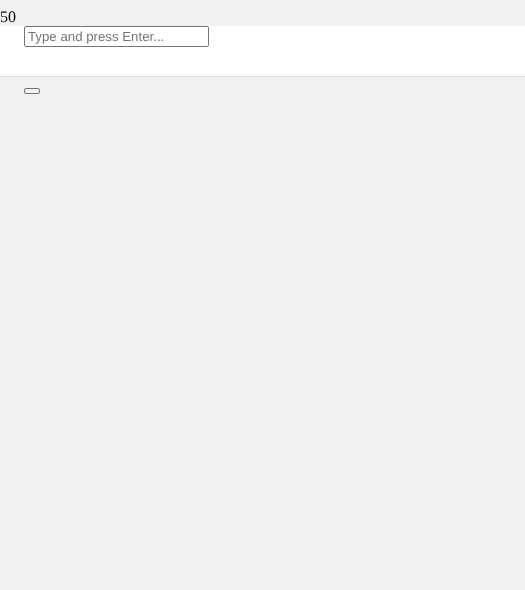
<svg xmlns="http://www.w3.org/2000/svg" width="525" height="590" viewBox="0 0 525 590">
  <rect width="100%" height="100%" fill="#f2f1f0"/>
  <path d="M0 76h525v1H0z" fill="#dfdedd"/>
  <path d="M0 26h525v50H0z" fill="#fff"/>
  <rect x="24.5" y="26.5" width="184" height="20" rx="1.5" fill="none" stroke="#767676"/>
  <rect x="24.5" y="88.5" width="15" height="5" rx="1.5" fill="#efefef" stroke="#767676"/>
  <text x="0" y="22" font-family="Liberation Serif" font-size="16" fill="#000">50</text>
  <text x="28" y="41" font-family="Liberation Sans" font-size="13.25" fill="#757575">Type and press Enter...</text>
</svg>
